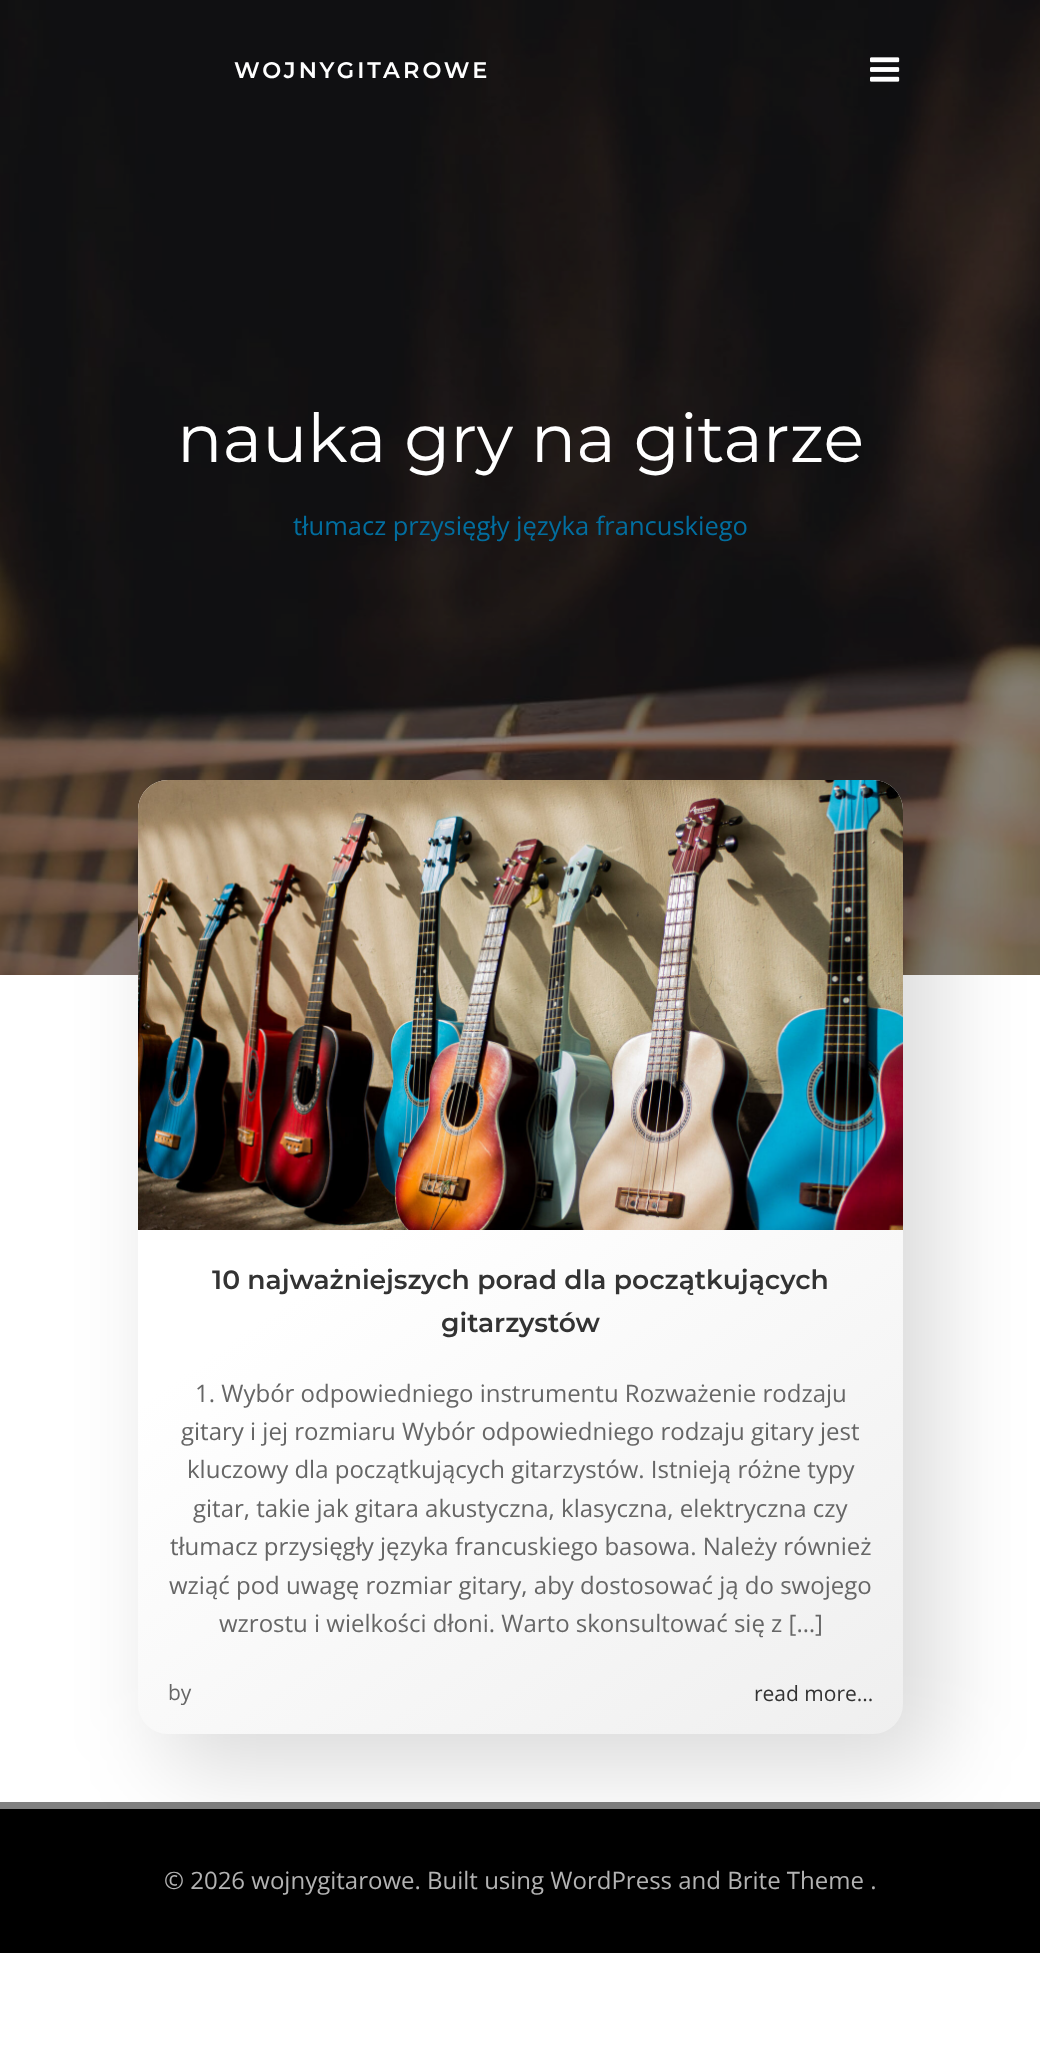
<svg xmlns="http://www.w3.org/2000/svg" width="1040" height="2061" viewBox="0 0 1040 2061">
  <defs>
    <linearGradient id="g1" gradientUnits="userSpaceOnUse" x1="171" y1="757" x2="870" y2="1757"><stop offset="0.42" stop-color="#fff"/><stop offset="1" stop-color="#efefef"/></linearGradient>
  </defs>
  <rect width="100%" height="100%" fill="#fff"/>
  <image x="0" y="0" width="1040" height="975" href="img/2.png"/>
  <image x="870" y="57" width="30" height="25" href="img/1.png"/>
  <path d="M0 1809h1040v144H0z" fill="#000"/>
  <path d="M0 1802h1040v7H0z" fill="#808080"/>
  <rect x="165" y="807" width="771" height="960" rx="33" fill="#00000026" filter="blur(45px)"/>
  <rect x="138" y="780" width="765" height="954" rx="30" fill="url(#g1)"/>
  <image x="138" y="780" width="765" height="450" href="img/3.png"/>
  <text x="234" y="78" font-family="Montserrat" font-size="22.5" font-weight="600" letter-spacing="3" fill="#fff">WOJNYGITAROWE</text>
  <text x="177" y="462" font-family="Montserrat" font-size="67.25" fill="#fff">nauka gry na gitarze</text>
  <text x="293" y="535" font-family="Open Sans" font-size="25.5" fill="#026e9f">tłumacz przysięgły języka francuskiego</text>
  <g font-family="Montserrat" font-size="26.6" font-weight="600" fill="#333">
    <text x="212" y="1289">10 najważniejszych porad dla początkujących</text>
    <text x="441" y="1332">gitarzystów</text>
  </g>
  <g font-family="Open Sans" font-size="24" fill="#666">
    <text x="195" y="1402">1. Wybór odpowiedniego instrumentu Rozważenie rodzaju</text>
    <text x="181" y="1440">gitary i jej rozmiaru Wybór odpowiedniego rodzaju gitary jest</text>
    <text x="187" y="1478">kluczowy dla początkujących gitarzystów. Istnieją różne typy</text>
    <text x="193" y="1517">gitar, takie jak gitara akustyczna, klasyczna, elektryczna czy</text>
    <text x="170" y="1555">tłumacz przysięgły języka francuskiego basowa. Należy również</text>
    <text x="169" y="1594">wziąć pod uwagę rozmiar gitary, aby dostosować ją do swojego</text>
    <text x="219" y="1632">wzrostu i wielkości dłoni. Warto skonsultować się z […]</text>
  </g>
  <text x="168" y="1700" font-family="Open Sans" font-size="21" fill="#666">by</text>
  <text x="754" y="1701" font-family="Open Sans" font-size="21" fill="#333">read more...</text>
  <text x="164" y="1889" font-family="Open Sans" font-size="24" fill="#b3b3b3">© 2026 wojnygitarowe. Built using WordPress and Brite Theme .</text>
</svg>
